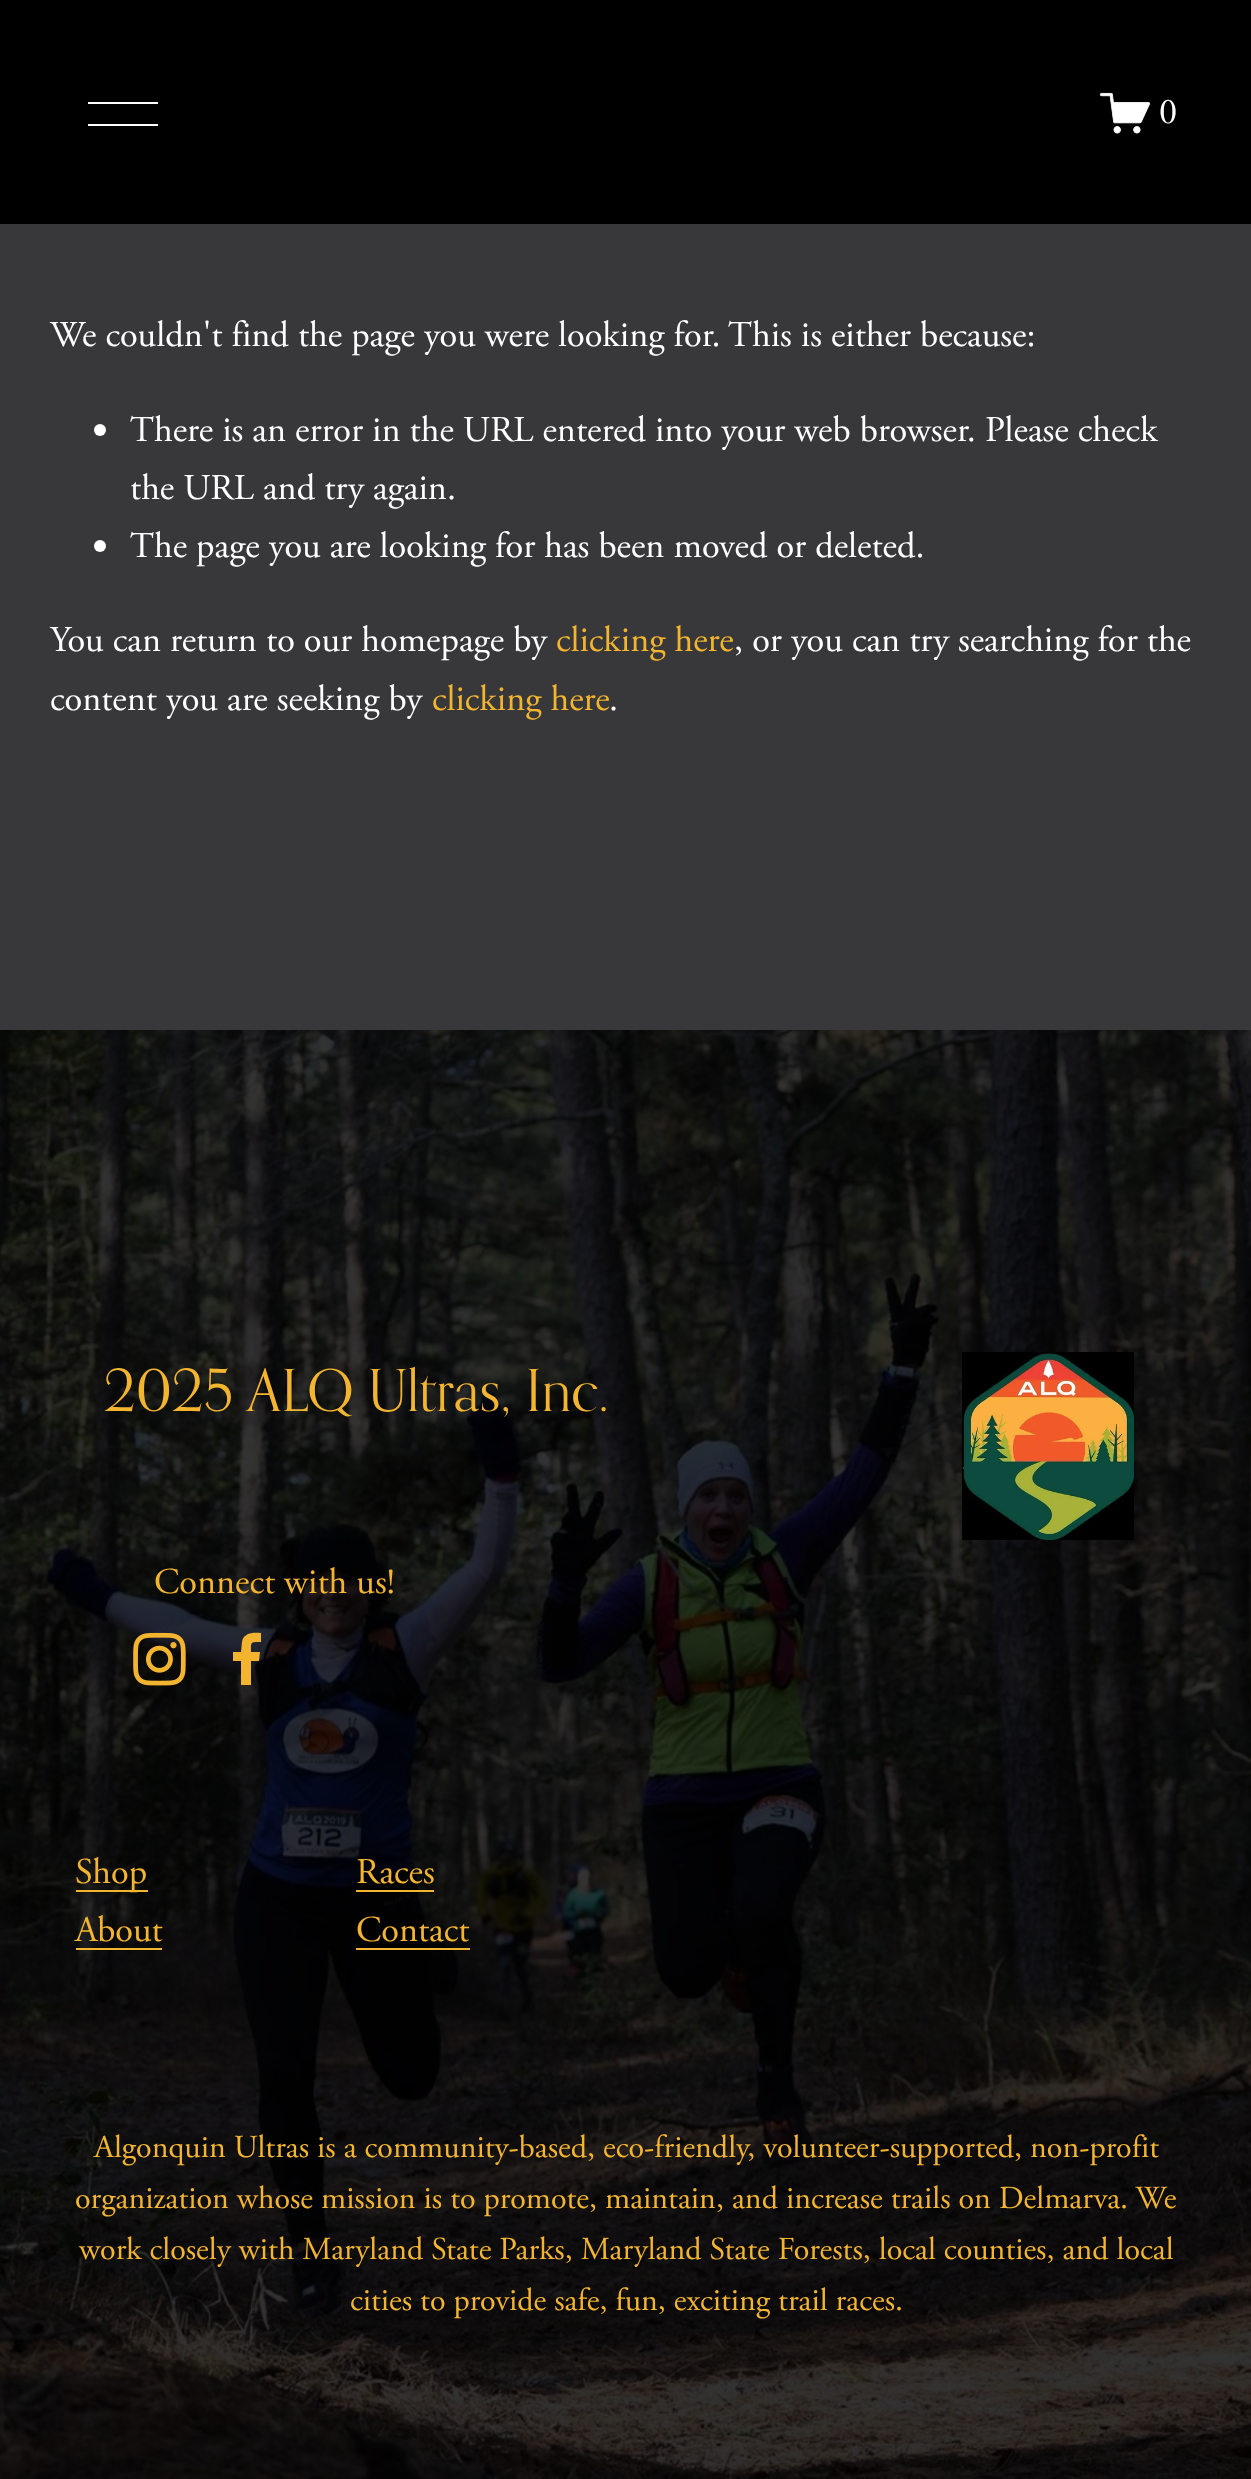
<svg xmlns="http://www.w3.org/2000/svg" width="1251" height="2479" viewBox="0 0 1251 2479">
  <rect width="100%" height="100%" fill="#38383b"/>
  <path d="M0 0h1251v224H0z" fill="#000"/>
  <path d="M88 102h70v2H88z" fill="#fff"/>
  <path d="M88 124h70v2H88z" fill="#fff"/>
  <image x="1100" y="92" width="50" height="42" href="img/1.png"/>
  <circle cx="100" cy="430" r="6" fill="#fff"/>
  <circle cx="100" cy="546" r="6" fill="#fff"/>
  <image x="0" y="1030" width="1251" height="1449" href="img/2.png"/>
  <image x="962" y="1352" width="172" height="188" href="img/3.png"/>
  <image x="133" y="1632" width="53" height="54" href="img/4.png"/>
  <path d="M251 1685V1661H259L260 1652H251C251 1642 250 1642 261 1642V1633C253 1632 243 1633 242 1642L241 1652H233V1661H241V1685Z" fill="#f3b530"/>
  <path d="M76 1890h72v2H76z" fill="#f3b530"/>
  <path d="M76 1948h86v2H76z" fill="#f3b530"/>
  <path d="M356 1890h78v2H356z" fill="#f3b530"/>
  <path d="M356 1948h114v2H356z" fill="#f3b530"/>
  <g font-family="Adobe Garamond" font-size="36.3" fill="#fff">
    <text x="1159" y="123">0</text>
    <text x="50" y="346">We couldn't find the page you were looking for. This is either because:</text>
    <text x="130" y="441">There is an error in the URL entered into your web browser. Please check</text>
    <text x="130" y="499">the URL and try again.</text>
    <text x="130" y="557">The page you are looking for has been moved or deleted.</text>
    <text x="50" y="651">You can return to our homepage by</text>
  </g>
  <text x="556" y="651" font-family="Adobe Garamond" font-size="36.3" fill="#f3b530">clicking here</text>
  <g font-family="Adobe Garamond" font-size="36.3" fill="#fff">
    <text x="734" y="651">, or you can try searching for the</text>
    <text x="50" y="710">content you are seeking by</text>
  </g>
  <text x="432" y="710" font-family="Adobe Garamond" font-size="36.3" fill="#f3b530">clicking here</text>
  <text x="609" y="710" font-family="Adobe Garamond" font-size="36.3" fill="#fff">.</text>
  <text x="104" y="1411" font-family="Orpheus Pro" font-size="58" fill="#f3b530">2025 ALQ Ultras, Inc.</text>
  <g font-family="Adobe Garamond" font-size="36.3" fill="#f3b530">
    <text x="154" y="1593">Connect with us!</text>
    <text x="75" y="1883">Shop</text>
    <text x="75" y="1941">About</text>
    <text x="356" y="1883">Races</text>
    <text x="356" y="1941">Contact</text>
  </g>
  <g font-family="Adobe Garamond" font-size="32" fill="#f3b530">
    <text x="94" y="2157">Algonquin Ultras is a community-based, eco-friendly, volunteer-supported, non-profit</text>
    <text x="75" y="2208">organization whose mission is to promote, maintain, and increase trails on Delmarva. We</text>
    <text x="79" y="2259">work closely with Maryland State Parks, Maryland State Forests, local counties, and local</text>
    <text x="350" y="2310">cities to provide safe, fun, exciting trail races.</text>
  </g>
</svg>
